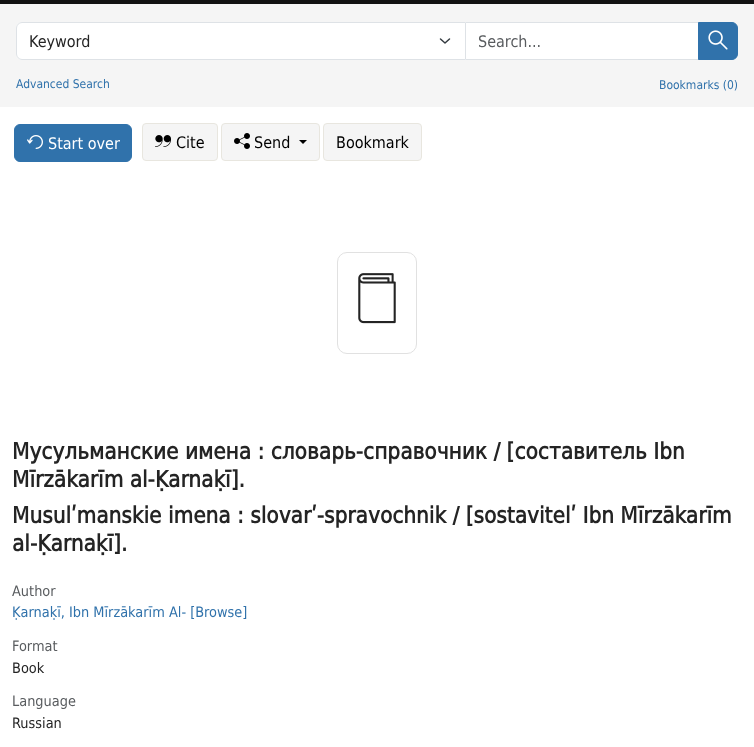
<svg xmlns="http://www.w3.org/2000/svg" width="754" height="747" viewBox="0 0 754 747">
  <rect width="100%" height="100%" fill="#f5f5f5"/>
  <path d="M0 0h754v4H0z" fill="#121212"/>
  <path d="M465.5 22.5h233v37H465.5z" fill="#fff" stroke="#dee2e6"/>
  <path d="M22 22H466V60H22C18.5 60 16 57.5 16 54V28C16 24.5 18.5 22 22 22Z" fill="#fff"/>
  <path d="M440.5 39L445 43L449.5 39" fill="none" stroke="#343a40" stroke-width="1.5" stroke-linecap="round" stroke-linejoin="round"/>
  <path d="M22 22.5H465.5V59.5H22C19 59.5 16.5 57 16.5 54V28C16.5 25 19 22.5 22 22.5Z" fill="none" stroke="#dee2e6"/>
  <path d="M698.5 22.5H732C735 22.5 737.5 25 737.5 28V54C737.5 57 735 59.5 732 59.5H698.5Z" fill="#3072ab" stroke="#3072ab"/>
  <image x="708" y="30" width="20" height="20" href="img/1.png"/>
  <path d="M0 107h754v640H0z" fill="#fff"/>
  <rect x="14.5" y="124.5" width="117" height="37" rx="5.5" fill="#3072ab" stroke="#3072ab"/>
  <image x="27" y="135" width="16" height="14" href="img/2.png"/>
  <rect x="142.5" y="123.5" width="75" height="37" rx="3.5" fill="#f5f5f5" stroke="#e8e6df"/>
  <image x="155" y="135" width="16" height="12" href="img/3.png"/>
  <rect x="221.5" y="123.5" width="98" height="37" rx="3.5" fill="#f5f5f5" stroke="#e8e6df"/>
  <image x="234" y="133" width="16" height="16" href="img/4.png"/>
  <path d="M299 140H307L303 144Z" fill="#000"/>
  <rect x="323.5" y="123.5" width="98" height="37" rx="3.5" fill="#f5f5f5" stroke="#e8e6df"/>
  <rect x="337.5" y="252.5" width="79" height="101" rx="9.5" fill="none" stroke="#e1e1e1"/>
  <image x="358" y="273" width="38" height="51" href="img/5.png"/>
  <text x="29" y="47" font-family="DejaVu Sans" font-size="16" fill="#242424">Keyword</text>
  <text x="478" y="47" font-family="DejaVu Sans" font-size="16" fill="#595c5f">Search...</text>
  <g font-family="DejaVu Sans" font-size="12" fill="#3072ab">
    <text x="16" y="88">Advanced Search</text>
    <text x="659" y="89">Bookmarks (0)</text>
  </g>
  <text x="48" y="149" font-family="DejaVu Sans" font-size="16" fill="#fff">Start over</text>
  <g font-family="DejaVu Sans" font-size="16" fill="#000">
    <text x="176" y="148">Cite</text>
    <text x="254" y="148">Send</text>
    <text x="336" y="148">Bookmark</text>
  </g>
  <g font-family="DejaVu Sans" font-size="22.4" font-weight="bold" fill="#242424">
    <text x="12" y="459">Мусульманские имена : словарь-справочник / [составитель Ibn</text>
    <text x="12" y="487">Mīrzākarīm al-Ḳarnaḳī].</text>
    <text x="12" y="523">Musulʹmanskie imena : slovarʹ-spravochnik / [sostavitelʹ Ibn Mīrzākarīm</text>
    <text x="12" y="551">al-Ḳarnaḳī].</text>
  </g>
  <text x="12" y="596" font-family="DejaVu Sans" font-size="14.4" fill="#595c5f">Author</text>
  <text x="12" y="617" font-family="DejaVu Sans" font-size="14.4" fill="#3072ab">Ḳarnaḳī, Ibn Mīrzākarīm Al- [Browse]</text>
  <text x="12" y="651" font-family="DejaVu Sans" font-size="14.4" fill="#595c5f">Format</text>
  <text x="12" y="673" font-family="DejaVu Sans" font-size="14.4" fill="#242424">Book</text>
  <text x="12" y="706" font-family="DejaVu Sans" font-size="14.4" fill="#595c5f">Language</text>
  <text x="12" y="728" font-family="DejaVu Sans" font-size="14.4" fill="#242424">Russian</text>
</svg>
